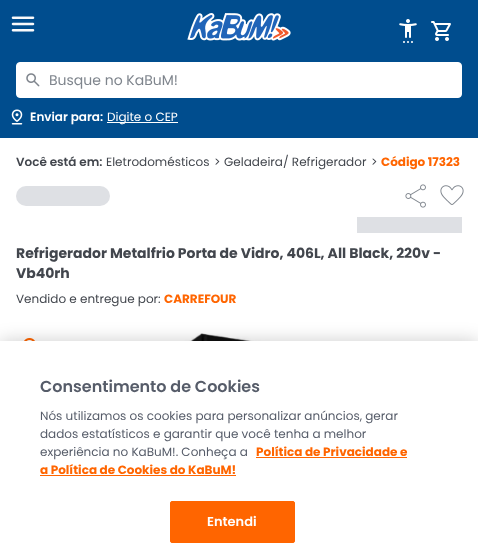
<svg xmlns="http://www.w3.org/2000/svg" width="478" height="559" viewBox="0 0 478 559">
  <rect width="100%" height="100%" fill="#fff"/>
  <path d="M0 0h478v138H0z" fill="#004d8e"/>
  <image x="11" y="16" width="24" height="16" href="img/1.png"/>
  <image x="187" y="13" width="104" height="28" href="img/2.png"/>
  <image x="399" y="19" width="18" height="24" href="img/3.png"/>
  <image x="431" y="21" width="20" height="20" href="img/4.png"/>
  <rect x="16.5" y="62.5" width="445" height="35" rx="3.5" fill="#fff" stroke="#fff"/>
  <image x="26" y="73" width="14" height="14" href="img/5.png"/>
  <image x="11" y="109" width="12" height="16" href="img/6.png"/>
  <path d="M107 122h71v1H107z" fill="#fff"/>
  <rect x="16" y="186" width="94" height="20" rx="10" fill="#dee0e4"/>
  <image x="405" y="184" width="21" height="24" href="img/7.png"/>
  <image x="440" y="185" width="24" height="20" href="img/8.png"/>
  <path d="M357 217h105v16H357z" fill="#dee0e4"/>
  <image x="24" y="338" width="11" height="3" href="img/9.png"/>
  <image x="162" y="333" width="160" height="8" href="img/10.png"/>
  <path d="M0 341h478v218H0z" fill="#00000033" filter="blur(9px)"/>
  <path d="M0 341h478v218H0z" fill="#fff"/>
  <path d="M256 457h151v1H256z" fill="#ff6500"/>
  <path d="M40 475h196v1H40z" fill="#ff6500"/>
  <rect x="170.5" y="501.5" width="124" height="41" rx="1.5" fill="#ff6500" stroke="#ff6500"/>
  <text x="49" y="85" font-family="Poppins" font-size="14" fill="#7f858d">Busque no KaBuM!</text>
  <text x="30" y="121" font-family="Poppins" font-size="12" font-weight="600" fill="#fff">Enviar para:</text>
  <text x="107" y="121" font-family="Poppins" font-size="12" fill="#fff">Digite o CEP</text>
  <text x="16" y="166" font-family="Poppins" font-size="12" font-weight="600" fill="#42464d">Você está em:</text>
  <g font-family="Poppins" font-size="12" fill="#42464d">
    <text x="106" y="166">Eletrodomésticos</text>
    <text x="214" y="166">&gt;</text>
    <text x="224" y="166">Geladeira/ Refrigerador</text>
    <text x="371" y="166">&gt;</text>
  </g>
  <text x="381" y="166" font-family="Poppins" font-size="12" font-weight="bold" fill="#ff6500">Código 17323</text>
  <g font-family="Poppins" font-size="14" font-weight="bold" fill="#42464d">
    <text x="16" y="258">Refrigerador Metalfrio Porta de Vidro, 406L, All Black, 220v -</text>
    <text x="16" y="278">Vb40rh</text>
  </g>
  <text x="16" y="303" font-family="Poppins" font-size="12" fill="#42464d">Vendido e entregue por:</text>
  <text x="164" y="303" font-family="Poppins" font-size="12" font-weight="bold" fill="#ff6500">CARREFOUR</text>
  <text x="40" y="392" font-family="'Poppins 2'" font-size="16" font-weight="600" fill="#565c69">Consentimento de Cookies</text>
  <g font-family="'Poppins 2'" font-size="12" fill="#565c69">
    <text x="40" y="420">Nós utilizamos os cookies para personalizar anúncios, gerar</text>
    <text x="40" y="438">dados estatísticos e garantir que você tenha a melhor</text>
    <text x="40" y="456">experiência no KaBuM!. Conheça a</text>
  </g>
  <g font-family="'Poppins 2'" font-size="12" font-weight="bold" fill="#ff6500">
    <text x="256" y="456">Política de Privacidade e</text>
    <text x="40" y="474">a Política de Cookies do KaBuM!</text>
  </g>
  <text x="207" y="526" font-family="'Poppins 2'" font-size="13" font-weight="600" fill="#fff">Entendi</text>
</svg>
